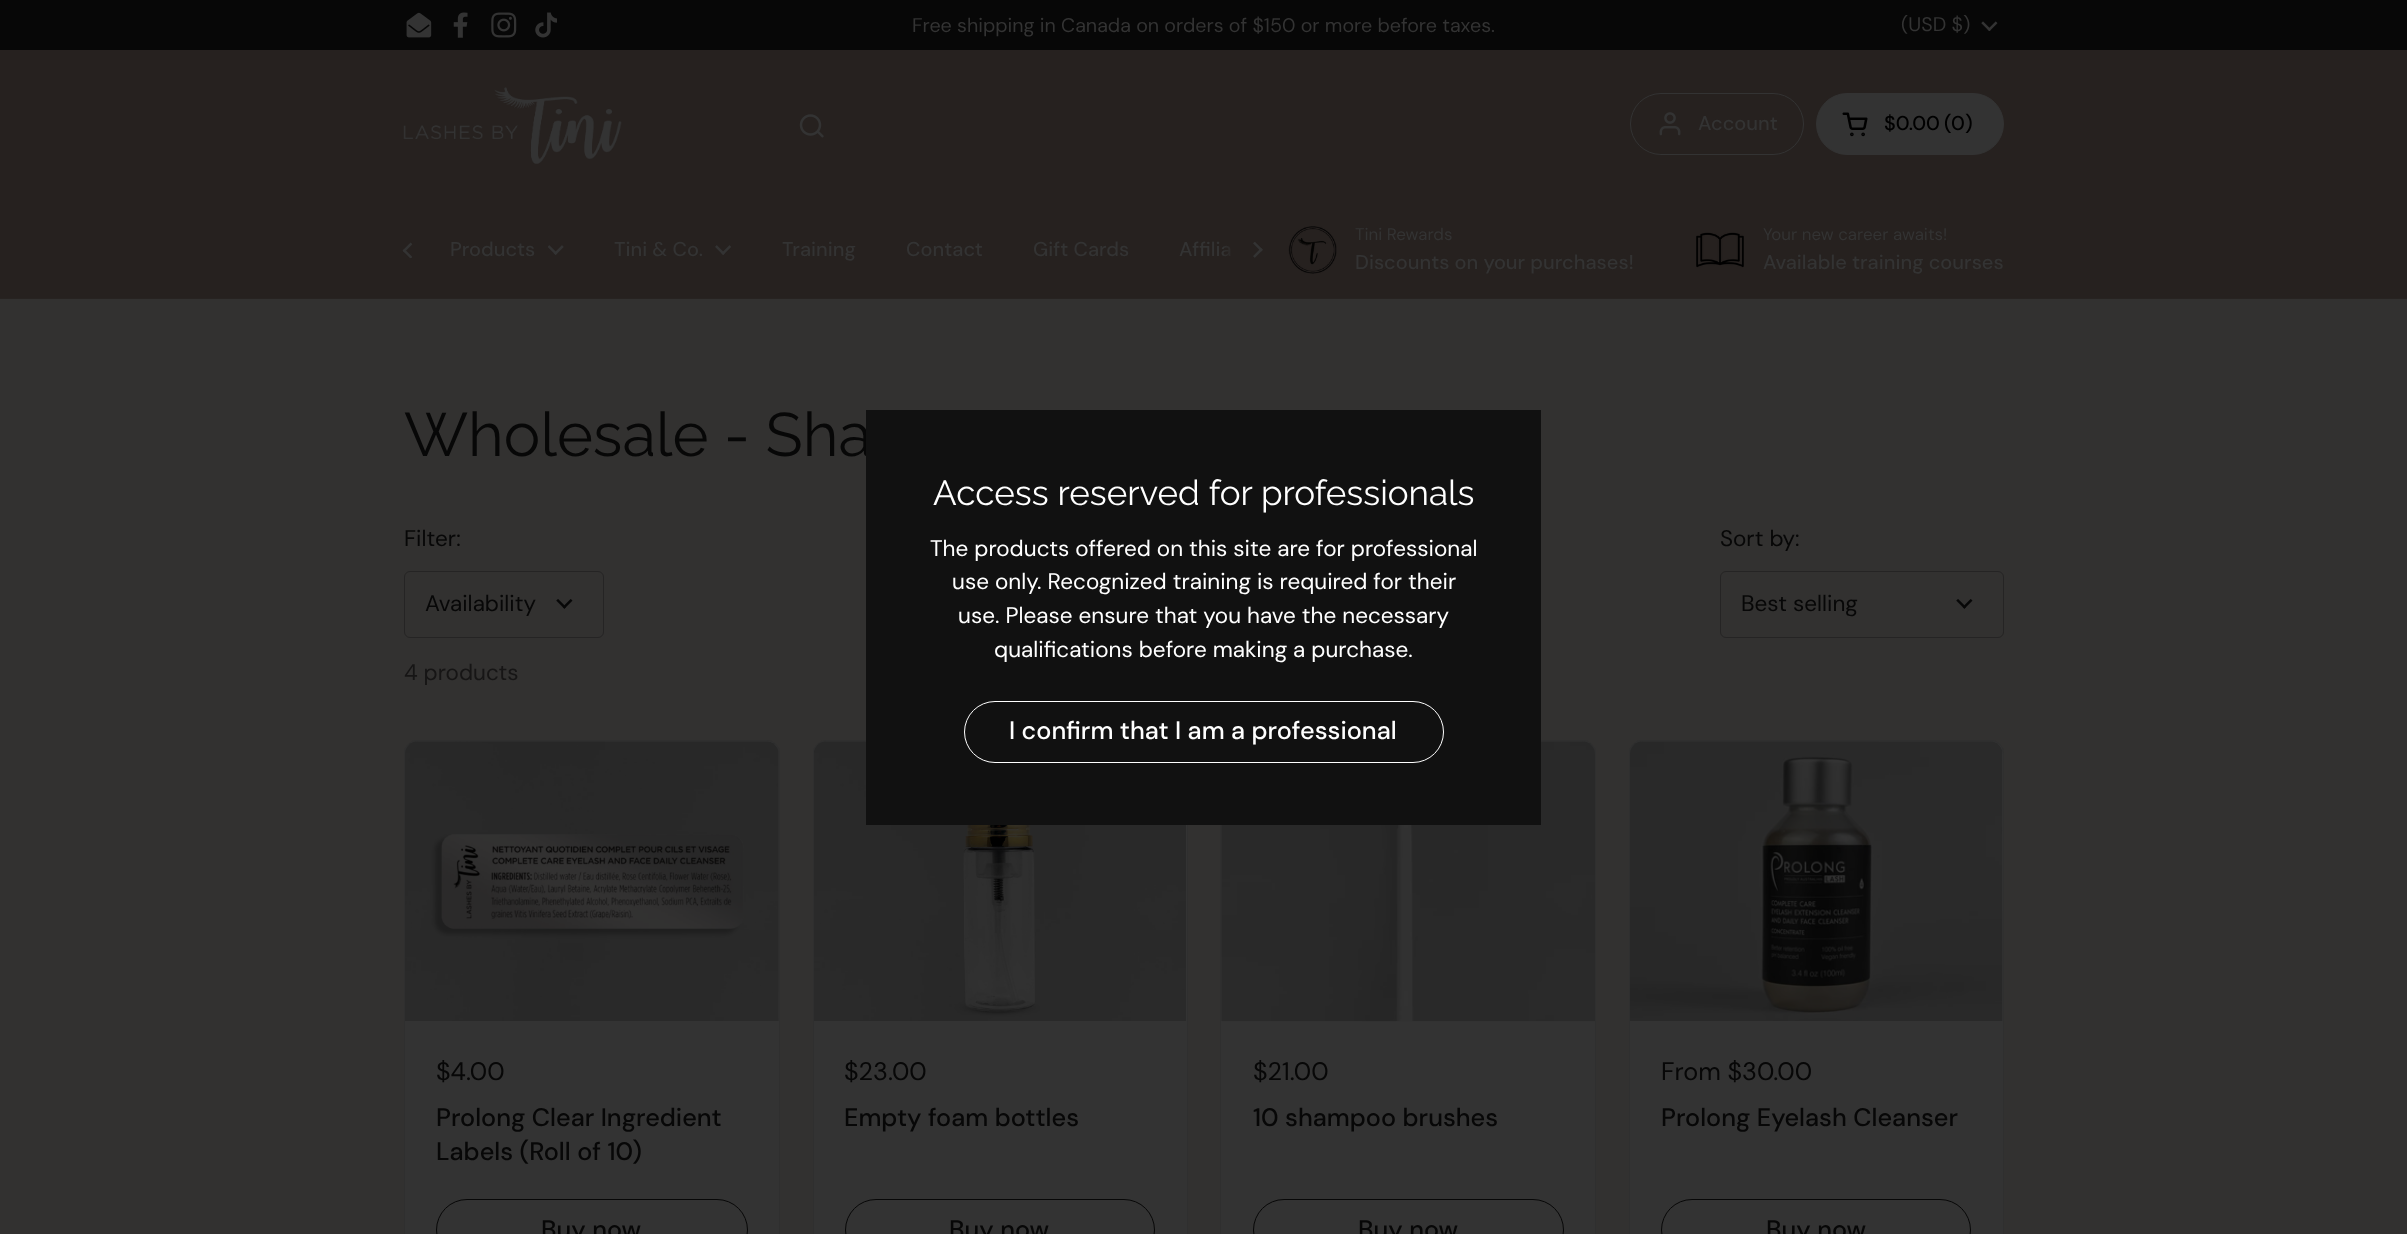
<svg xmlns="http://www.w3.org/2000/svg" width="2407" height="1234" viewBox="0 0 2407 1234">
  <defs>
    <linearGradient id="g1" gradientUnits="userSpaceOnUse" x1="1253" y1="250" x2="1222" y2="250"><stop offset="0.5" stop-color="#26211f"/><stop offset="1" stop-color="#26211f" stop-opacity="0"/></linearGradient>
  </defs>
  <rect width="100%" height="100%" fill="#323130"/>
  <path d="M0 0h2407v50H0z" fill="#070707"/>
  <image x="406" y="12" width="26" height="26" href="img/1.png"/>
  <image x="453" y="12" width="15" height="26" href="img/2.png"/>
  <image x="491" y="12" width="26" height="26" href="img/3.png"/>
  <image x="535" y="12" width="22" height="26" href="img/4.png"/>
  <image x="1981" y="21" width="17" height="10" href="img/5.png"/>
  <path d="M0 50h2407v248H0z" fill="#26211f"/>
  <image x="403" y="87" width="219" height="77" href="img/6.png"/>
  <image x="799" y="114" width="25" height="24" href="img/7.png"/>
  <rect x="1630.5" y="93.5" width="173" height="61" rx="30.5" fill="none" stroke="#333"/>
  <image x="1659" y="112" width="22" height="24" href="img/8.png"/>
  <rect x="1816.5" y="93.5" width="187" height="61" rx="30.5" fill="#333" stroke="#333"/>
  <image x="1842" y="112" width="26" height="25" href="img/9.png"/>
  <path d="M0 298h2407v1H0z" fill="#272321"/>
  <image x="402" y="242" width="11" height="17" href="img/10.png"/>
  <image x="548" y="245" width="16" height="10" href="img/11.png"/>
  <image x="715" y="245" width="16" height="10" href="img/12.png"/>
  <image x="1253" y="242" width="10" height="16" href="img/13.png"/>
  <image x="1288" y="226" width="49" height="48" href="img/14.png"/>
  <image x="1696" y="232" width="48" height="36" href="img/15.png"/>
  <image x="556" y="599" width="17" height="10" href="img/16.png"/>
  <rect x="404.5" y="571.5" width="199" height="66" rx="5.5" fill="none" stroke="#252424"/>
  <image x="1956" y="599" width="17" height="10" href="img/16.png"/>
  <rect x="1720.5" y="571.5" width="283" height="66" rx="5.5" fill="none" stroke="#252424"/>
  <rect x="404.5" y="740.5" width="375" height="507" rx="12.5" fill="#333" stroke="#2f2f2f"/>
  <image x="405" y="741" width="374" height="280" href="img/17.png"/>
  <rect x="436.5" y="1199.5" width="311" height="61" rx="30.5" fill="none" stroke="#070707"/>
  <rect x="813.5" y="740.5" width="374" height="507" rx="12.5" fill="#333" stroke="#2f2f2f"/>
  <image x="814" y="741" width="372" height="280" href="img/18.png"/>
  <rect x="845.5" y="1199.5" width="309" height="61" rx="30.5" fill="none" stroke="#070707"/>
  <rect x="1220.5" y="740.5" width="375" height="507" rx="12.5" fill="#333" stroke="#2f2f2f"/>
  <image x="1221" y="741" width="374" height="281" href="img/19.png"/>
  <rect x="1253.5" y="1199.5" width="310" height="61" rx="30.5" fill="none" stroke="#070707"/>
  <rect x="1629.5" y="740.5" width="374" height="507" rx="12.5" fill="#333" stroke="#2f2f2f"/>
  <image x="1630" y="741" width="373" height="280" href="img/20.png"/>
  <rect x="1661.5" y="1199.5" width="309" height="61" rx="30.5" fill="none" stroke="#070707"/>
  <g font-family="DM Sans" font-size="19.7" fill="#333">
    <text x="912" y="32">Free shipping in Canada on orders of $150 or more before taxes.</text>
    <text x="1901" y="31">(USD $)</text>
  </g>
  <text x="1698" y="130" font-family="'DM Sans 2'" font-size="20" font-weight="500" fill="#333">Account</text>
  <g font-family="'DM Sans 2'" font-size="20" font-weight="500" fill="#000">
    <text x="1884" y="130">$0.00</text>
    <text x="1944" y="130">(0</text>
    <text x="1965" y="130">)</text>
  </g>
  <g font-family="'DM Sans 2'" font-size="20" font-weight="500" fill="#333">
    <text x="450" y="256">Products</text>
    <text x="614" y="256">Tini &amp; Co.</text>
    <text x="782" y="256">Training</text>
    <text x="906" y="256">Contact</text>
    <text x="1033" y="256">Gift Cards</text>
    <text x="1179" y="256">Affilia</text>
  </g>
  <path d="M1224 246h7v10H1224z" fill="url(#g1)"/>
  <text x="1355" y="240" font-family="'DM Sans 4'" font-size="16.9" fill="#333">Tini Rewards</text>
  <text x="1355" y="269" font-family="'DM Sans 2'" font-size="20" font-weight="500" fill="#333">Discounts on your purchases!</text>
  <text x="1763" y="240" font-family="'DM Sans 4'" font-size="16.9" fill="#333">Your new career awaits!</text>
  <text x="1763" y="269" font-family="'DM Sans 2'" font-size="20" font-weight="500" fill="#333">Available training courses</text>
  <text x="404" y="456" font-family="Raleway" font-size="61.25" fill="#070707">Wholesale - Sha</text>
  <g font-family="'DM Sans 2'" font-size="22.5" fill="#070707">
    <text x="404" y="546">Filter:</text>
    <text x="425" y="611">Availability</text>
    <text x="1720" y="546">Sort by:</text>
    <text x="1741" y="611">Best selling</text>
  </g>
  <text x="404" y="680" font-family="'DM Sans 2'" font-size="22.5" fill="#161515">4 products</text>
  <text x="436" y="1080" font-family="'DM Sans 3'" font-size="25.25" fill="#070707">$4.00</text>
  <g font-family="DM Sans" font-size="25.25" font-weight="500" fill="#070707">
    <text x="436" y="1126">Prolong Clear Ingredient</text>
    <text x="436" y="1160">Labels (Roll of 10)</text>
    <text x="541" y="1238">Buy now</text>
  </g>
  <text x="844" y="1080" font-family="'DM Sans 3'" font-size="25.25" fill="#070707">$23.00</text>
  <g font-family="DM Sans" font-size="25.25" font-weight="500" fill="#070707">
    <text x="844" y="1126">Empty foam bottles</text>
    <text x="949" y="1238">Buy now</text>
  </g>
  <text x="1253" y="1080" font-family="'DM Sans 3'" font-size="25.25" fill="#070707">$21.00</text>
  <g font-family="DM Sans" font-size="25.25" font-weight="500" fill="#070707">
    <text x="1253" y="1126">10 shampoo brushes</text>
    <text x="1358" y="1238">Buy now</text>
  </g>
  <text x="1661" y="1080" font-family="'DM Sans 3'" font-size="25.25" fill="#070707">From $30.00</text>
  <g font-family="DM Sans" font-size="25.25" font-weight="500" fill="#070707">
    <text x="1661" y="1126">Prolong Eyelash Cleanser</text>
    <text x="1766" y="1238">Buy now</text>
  </g>
  <path d="M866 410h675v415H866z" fill="#111"/>
  <text x="933" y="505" font-family="Raleway" font-size="35" fill="#fff">Access reserved for professionals</text>
  <g font-family="'DM Sans 2'" font-size="22.5" fill="#fff">
    <text x="930" y="556">The products offered on this site are for professional</text>
    <text x="952" y="589">use only. Recognized training is required for their</text>
    <text x="958" y="623">use. Please ensure that you have the necessary</text>
    <text x="994" y="657">qualifications before making a purchase.</text>
  </g>
  <rect x="964.5" y="701.5" width="479" height="61" rx="30.5" fill="none" stroke="#fff"/>
  <text x="1009" y="739" font-family="DM Sans" font-size="25.25" font-weight="500" fill="#fff">I confirm that I am a professional</text>
</svg>
